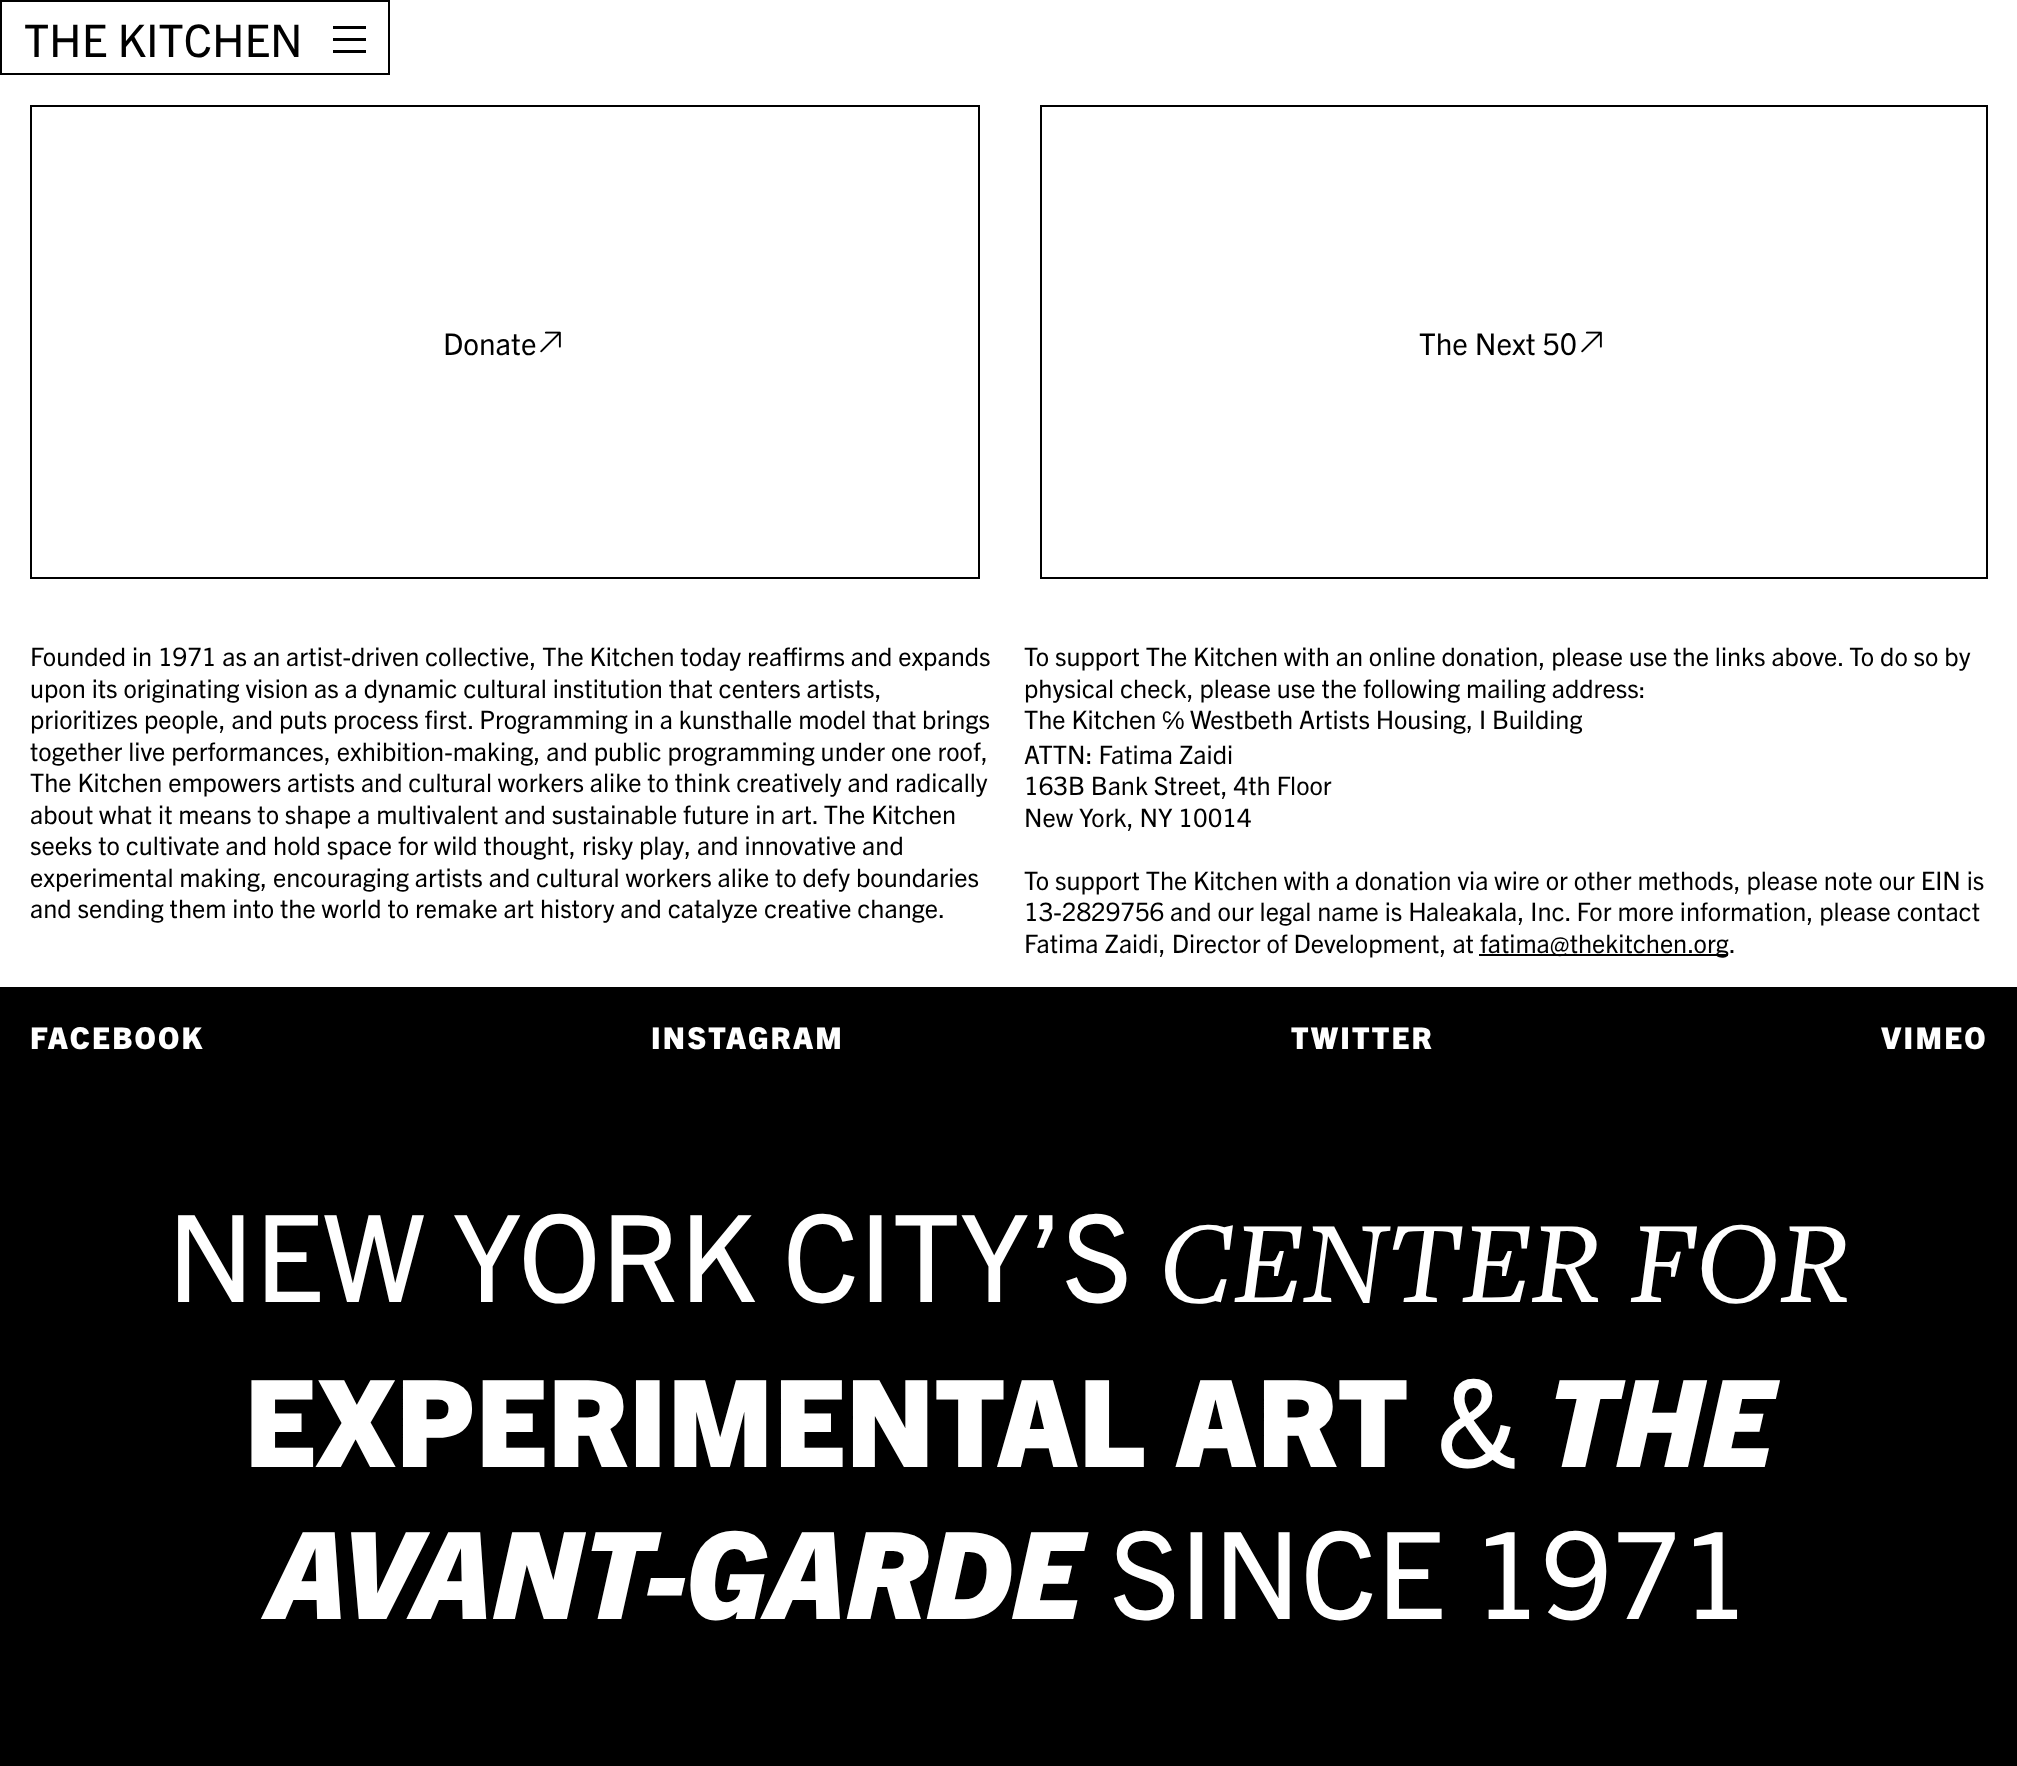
<svg xmlns="http://www.w3.org/2000/svg" width="2017" height="1766" viewBox="0 0 2017 1766">
  <rect width="100%" height="100%" fill="#fff"/>
  <path d="M1 1h388v73H1z" fill="none" stroke="#000" stroke-width="2"/>
  <path d="M333 26h33v3H333z" fill="#000"/>
  <path d="M333 38h33v3H333z" fill="#000"/>
  <path d="M333 50h33v3H333z" fill="#000"/>
  <path d="M31 106h948v472H31z" fill="none" stroke="#000" stroke-width="2"/>
  <image x="540" y="331" width="21" height="22" href="img/1.png"/>
  <path d="M1041 106h946v472H1041z" fill="none" stroke="#000" stroke-width="2"/>
  <image x="1581" y="331" width="21" height="22" href="img/1.png"/>
  <path d="M1479 954h249v2H1479z" fill="#000"/>
  <path d="M0 987h2017v779H0z" fill="#000"/>
  <text x="24" y="57" font-family="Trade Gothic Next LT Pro" font-size="45" fill="#000">THE KITCHEN</text>
  <g font-family="Trade Gothic Next LT Pro" font-size="30" fill="#000">
    <text x="443" y="355">Donate</text>
    <text x="1419" y="355">The Next 50</text>
  </g>
  <g font-family="Trade Gothic Next LT Pro" font-size="25.5" fill="#000">
    <text x="30" y="666">Founded in 1971 as an artist-driven collective, The Kitchen today reaffirms and expands</text>
    <text x="30" y="698">upon its originating vision as a dynamic cultural institution that centers artists,</text>
    <text x="30" y="729">prioritizes people, and puts process first. Programming in a kunsthalle model that brings</text>
    <text x="30" y="761">together live performances, exhibition-making, and public programming under one roof,</text>
    <text x="30" y="792">The Kitchen empowers artists and cultural workers alike to think creatively and radically</text>
    <text x="30" y="824">about what it means to shape a multivalent and sustainable future in art. The Kitchen</text>
    <text x="30" y="855">seeks to cultivate and hold space for wild thought, risky play, and innovative and</text>
    <text x="30" y="887">experimental making, encouraging artists and cultural workers alike to defy boundaries</text>
    <text x="30" y="918">and sending them into the world to remake art history and catalyze creative change.</text>
    <text x="1024" y="666">To support The Kitchen with an online donation, please use the links above. To do so by</text>
    <text x="1024" y="698">physical check, please use the following mailing address:</text>
    <text x="1024" y="729">The Kitchen</text>
  </g>
  <text x="1162" y="729" font-family="Liberation Sans" font-size="25.5" fill="#000">℅</text>
  <g font-family="Trade Gothic Next LT Pro" font-size="25.5" fill="#000">
    <text x="1190" y="729">Westbeth Artists Housing, I Building</text>
    <text x="1024" y="764">ATTN: Fatima Zaidi</text>
    <text x="1024" y="795">163B Bank Street, 4th Floor</text>
    <text x="1024" y="827">New York, NY 10014</text>
    <text x="1024" y="890">To support The Kitchen with a donation via wire or other methods, please note our EIN is</text>
    <text x="1024" y="921">13-2829756 and our legal name is Haleakala, Inc. For more information, please contact</text>
    <text x="1024" y="953">Fatima Zaidi, Director of Development, at</text>
    <text x="1480" y="953">fatima@thekitchen.org.</text>
  </g>
  <g font-family="Trade Gothic Next LT Pro" font-size="30" font-weight="800" letter-spacing="2.25" fill="#fff">
    <text x="30" y="1049">FACEBOOK</text>
    <text x="651" y="1049">INSTAGRAM</text>
    <text x="1291" y="1049">TWITTER</text>
    <text x="1881" y="1049">VIMEO</text>
  </g>
  <text x="167" y="1302" font-family="Trade Gothic Next LT Pro" font-size="120.75" fill="#fff">NEW YORK CITY’S</text>
  <text x="1159" y="1302" font-family="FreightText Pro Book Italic" font-size="120.75" font-style="italic" fill="#fff">CENTER FOR</text>
  <text x="244" y="1467" font-family="Trade Gothic Next LT Pro" font-size="120.75" font-weight="800" fill="#fff">EXPERIMENTAL ART</text>
  <text x="1436" y="1467" font-family="Trade Gothic Next LT Pro" font-size="120.75" fill="#fff">&amp;</text>
  <g font-family="Trade Gothic Next LT Pro" font-size="120.75" font-weight="800" font-style="italic" fill="#fff">
    <text x="1546" y="1467">THE</text>
    <text x="268" y="1619">AVANT-GARDE</text>
  </g>
  <text x="1110" y="1619" font-family="Trade Gothic Next LT Pro" font-size="120.75" fill="#fff">SINCE 1971</text>
</svg>
